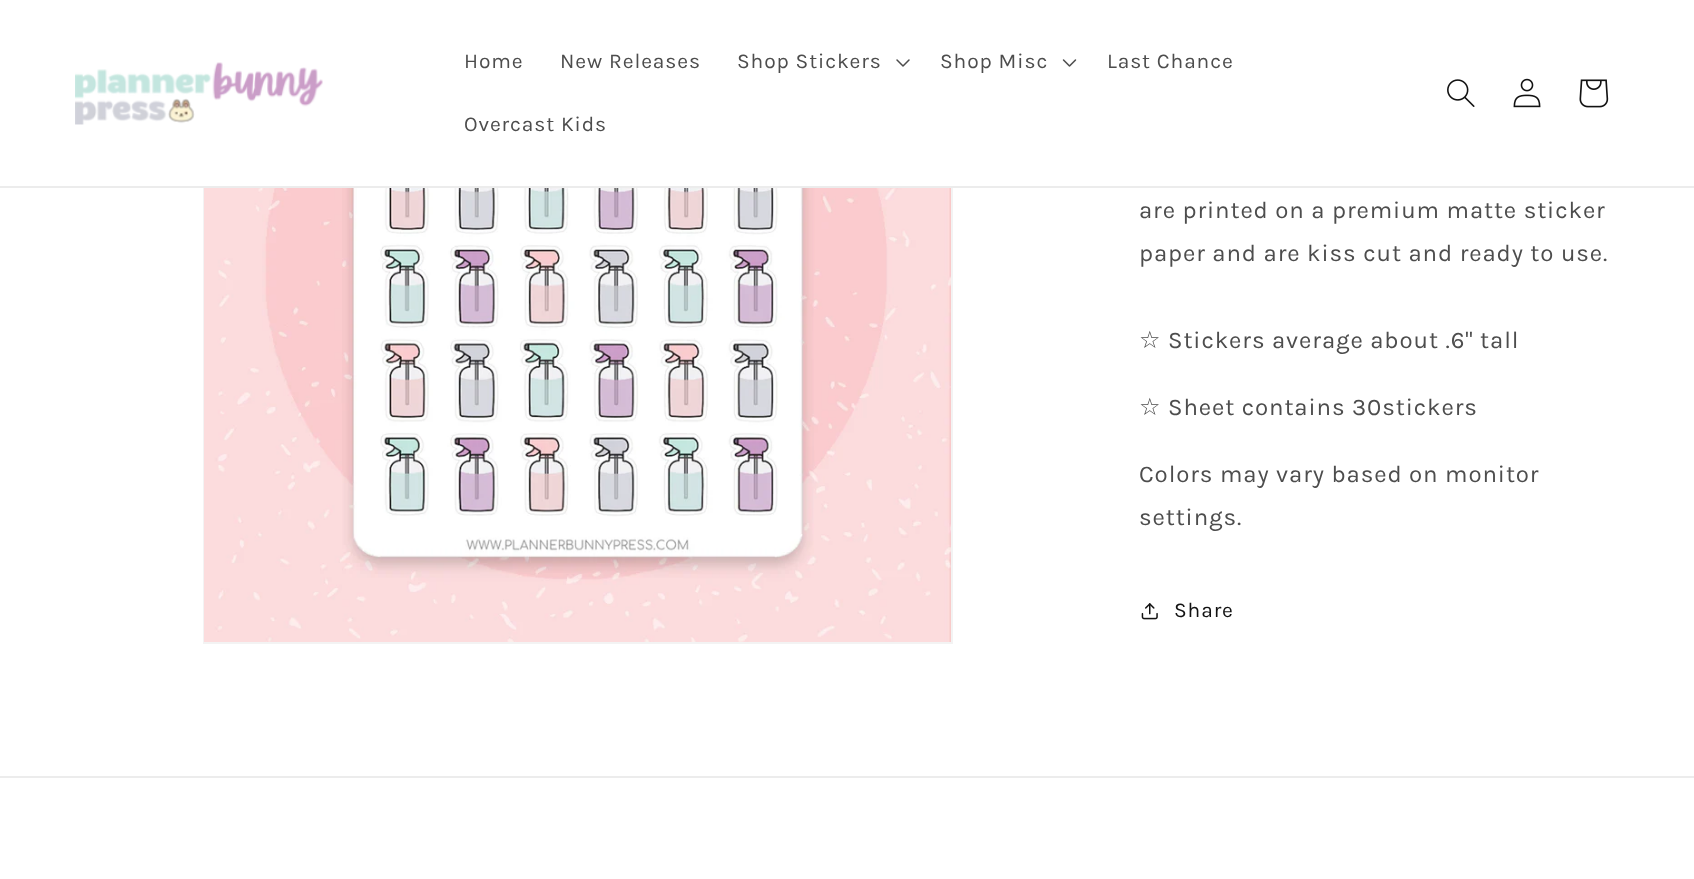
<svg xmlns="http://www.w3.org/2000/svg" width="1694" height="879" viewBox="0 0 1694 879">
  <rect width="100%" height="100%" fill="#fff"/>
  <path d="M204 -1h748v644H204z" fill="none" stroke="#f3f3f3" stroke-width="2"/>
  <path d="M203 0h750v186H203z" fill="#fff"/>
  <path d="M0 186h1694v2H0z" fill="#ececec"/>
  <image x="75" y="62" width="248" height="63" href="img/1.png"/>
  <image x="896" y="59" width="14" height="8" href="img/2.png"/>
  <image x="1062" y="59" width="15" height="8" href="img/3.png"/>
  <image x="1447" y="79" width="28" height="28" href="img/4.png"/>
  <image x="1513" y="78" width="28" height="30" href="img/5.png"/>
  <image x="1579" y="79" width="30" height="29" href="img/6.png"/>
  <image x="204" y="188" width="747" height="454" href="img/7.png"/>
  <image x="1141" y="603" width="17" height="17" href="img/8.png"/>
  <path d="M0 776h1694v2H0z" fill="#ececec"/>
  <g font-family="Karla" font-size="21" letter-spacing="0.9" fill="#4d4d4d">
    <text x="464" y="68">Home</text>
    <text x="560" y="68">New Releases</text>
    <text x="737" y="68">Shop Stickers</text>
    <text x="940" y="68">Shop Misc</text>
    <text x="1107" y="68">Last Chance</text>
    <text x="464" y="131">Overcast Kids</text>
  </g>
  <g font-family="Karla" font-size="24" letter-spacing="0.9" fill="#4d4d4d">
    <text x="1139" y="218">are printed on a premium matte sticker</text>
    <text x="1139" y="261">paper and are kiss cut and ready to use.</text>
  </g>
  <text x="1139" y="348" font-family="DejaVu Sans" font-size="24" letter-spacing="0.9" fill="#4d4d4d">☆</text>
  <text x="1168" y="348" font-family="Karla" font-size="24" letter-spacing="0.9" fill="#4d4d4d">Stickers average about .6" tall</text>
  <text x="1139" y="415" font-family="DejaVu Sans" font-size="24" letter-spacing="0.9" fill="#4d4d4d">☆</text>
  <g font-family="Karla" font-size="24" letter-spacing="0.9" fill="#4d4d4d">
    <text x="1168" y="415">Sheet contains 30stickers</text>
    <text x="1139" y="482">Colors may vary based on monitor</text>
    <text x="1139" y="525">settings.</text>
  </g>
  <text x="1174" y="617" font-family="Karla" font-size="21" letter-spacing="0.9" fill="#121212">Share</text>
</svg>
